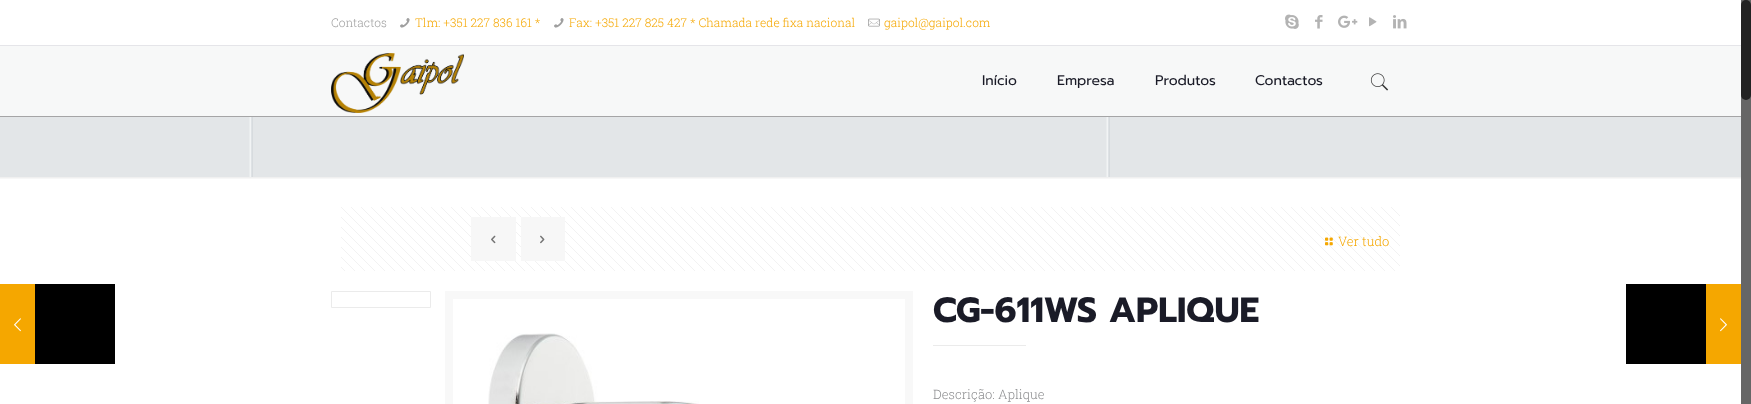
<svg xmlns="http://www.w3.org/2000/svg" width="1751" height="404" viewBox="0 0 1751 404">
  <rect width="100%" height="100%" fill="#fff"/>
  <path d="M0 284h35v80H0z" fill="#f5a700"/>
  <image x="14" y="318" width="7" height="14" href="img/1.png"/>
  <path d="M35 284h80v80H35z" fill="#000"/>
  <image x="0" y="117" width="1741" height="60" href="img/2.png"/>
  <path d="M0 45h1741v1H0z" fill="#e5e5e9"/>
  <image x="400" y="18" width="10" height="10" href="img/3.png"/>
  <image x="554" y="18" width="10" height="10" href="img/3.png"/>
  <image x="868" y="18" width="12" height="9" href="img/4.png"/>
  <image x="1285" y="14" width="14" height="15" href="img/5.png"/>
  <image x="1315" y="15" width="8" height="14" href="img/6.png"/>
  <image x="1338" y="15" width="20" height="13" href="img/7.png"/>
  <image x="1369" y="17" width="8" height="10" href="img/8.png"/>
  <image x="1393" y="15" width="14" height="14" href="img/9.png"/>
  <path d="M0 46h1741v70H0z" fill="#f7f8f8"/>
  <path d="M0 116h1741v1H0z" fill="#a5a5a6"/>
  <image x="331" y="53" width="133" height="60" href="img/10.png"/>
  <image x="1370" y="73" width="19" height="18" href="img/11.png"/>
  <image x="0" y="177" width="1741" height="2" href="img/12.png"/>
  <image x="341" y="207" width="1059" height="64" href="img/13.png"/>
  <path d="M471 217h45v44H471z" fill="#f7f7f7"/>
  <image x="491" y="235" width="5" height="9" href="img/14.png"/>
  <path d="M521 217h44v44H521z" fill="#f7f7f7"/>
  <image x="540" y="235" width="5" height="9" href="img/15.png"/>
  <image x="1325" y="237" width="8" height="9" href="img/16.png"/>
  <path d="M331.5 291.5h99v16H331.5z" fill="none" stroke="#ebebeb"/>
  <path d="M449 295h460v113H449z" fill="none" stroke="#f8f8f8" stroke-width="8"/>
  <image x="488" y="333" width="211" height="71" href="img/17.png"/>
  <path d="M933 345h93v1H933z" fill="#ebebeb"/>
  <path d="M1626 284h80v80H1626z" fill="#000"/>
  <path d="M1706 284h35v80H1706z" fill="#f5a700"/>
  <image x="1720" y="318" width="7" height="14" href="img/18.png"/>
  <path d="M1741 0h10v404H1741z" fill="#666"/>
  <rect x="1741" width="10" height="100" rx="5" fill="#222"/>
  <text x="331" y="27" font-family="Roboto Slab" font-size="12" font-weight="300" fill="#9f9f9f">Contactos</text>
  <g font-family="Roboto Slab" font-size="12" font-weight="300" fill="#f5a700">
    <text x="415" y="27">Tlm: +351 227 836 161 *</text>
    <text x="569" y="27">Fax: +351 227 825 427 * Chamada rede fixa nacional</text>
    <text x="884" y="27">gaipol@gaipol.com</text>
  </g>
  <g font-family="Prompt" font-size="14" fill="#1a1b27">
    <text x="982" y="85">Início</text>
    <text x="1057" y="85">Empresa</text>
    <text x="1155" y="85">Produtos</text>
    <text x="1255" y="85">Contactos</text>
  </g>
  <text x="1338" y="246" font-family="Roboto Slab" font-size="13" font-weight="300" fill="#f5a700">Ver tudo</text>
  <text x="933" y="322" font-family="Prompt" font-size="35" font-weight="bold" fill="#1a1b27">CG-611WS APLIQUE</text>
  <text x="933" y="399" font-family="Roboto Slab" font-size="13" font-weight="300" fill="#8d8e90">Descrição: Aplique</text>
</svg>
